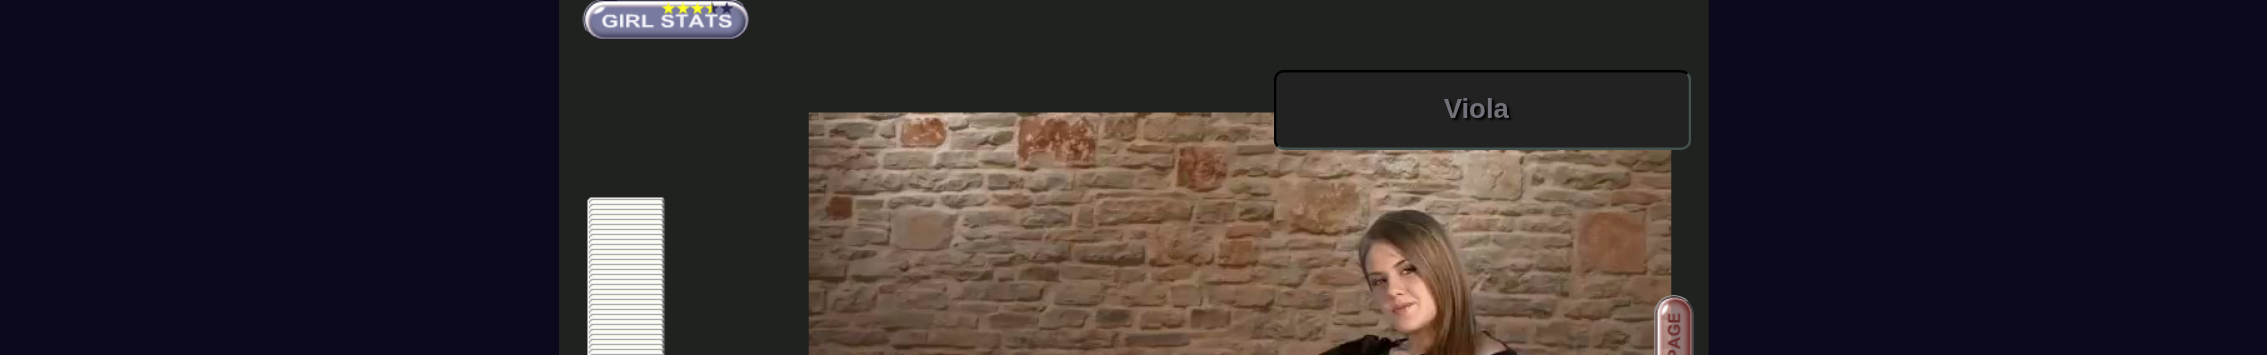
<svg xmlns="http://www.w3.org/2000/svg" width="2267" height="355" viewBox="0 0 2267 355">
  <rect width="100%" height="100%" fill="#0d091d"/>
  <image x="559" y="0" width="1150" height="355" href="img/1.png"/>
  <image x="582" y="0" width="167" height="40" href="img/2.png"/>
</svg>
